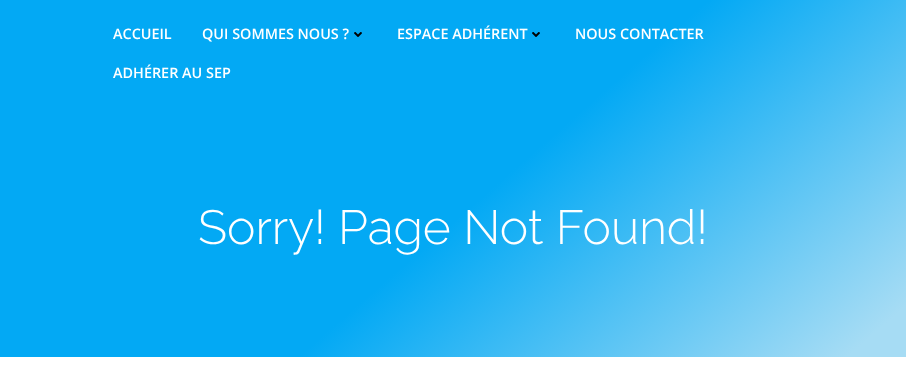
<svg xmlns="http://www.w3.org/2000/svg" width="906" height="375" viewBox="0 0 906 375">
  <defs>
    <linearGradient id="g1" gradientUnits="userSpaceOnUse" x1="165" y1="-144" x2="741" y2="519"><stop offset="0.53" stop-color="#03a9f4"/><stop offset="0.94" stop-color="#a6dcf4"/></linearGradient>
  </defs>
  <rect width="100%" height="100%" fill="#fff"/>
  <path d="M0 0h906v357H0z" fill="url(#g1)"/>
  <image x="354" y="32" width="8" height="5" href="img/1.png"/>
  <image x="532" y="32" width="8" height="5" href="img/1.png"/>
  <g font-family="Open Sans" font-size="14.4" font-weight="600" fill="#fff">
    <text x="113" y="39">ACCUEIL</text>
    <text x="202" y="39">QUI SOMMES NOUS ?</text>
    <text x="397" y="39">ESPACE ADHÉRENT</text>
    <text x="575" y="39">NOUS CONTACTER</text>
    <text x="113" y="78">ADHÉRER AU SEP</text>
  </g>
  <text x="198" y="244" font-family="Raleway" font-size="48" font-weight="300" fill="#fff">Sorry! Page Not Found!</text>
</svg>
